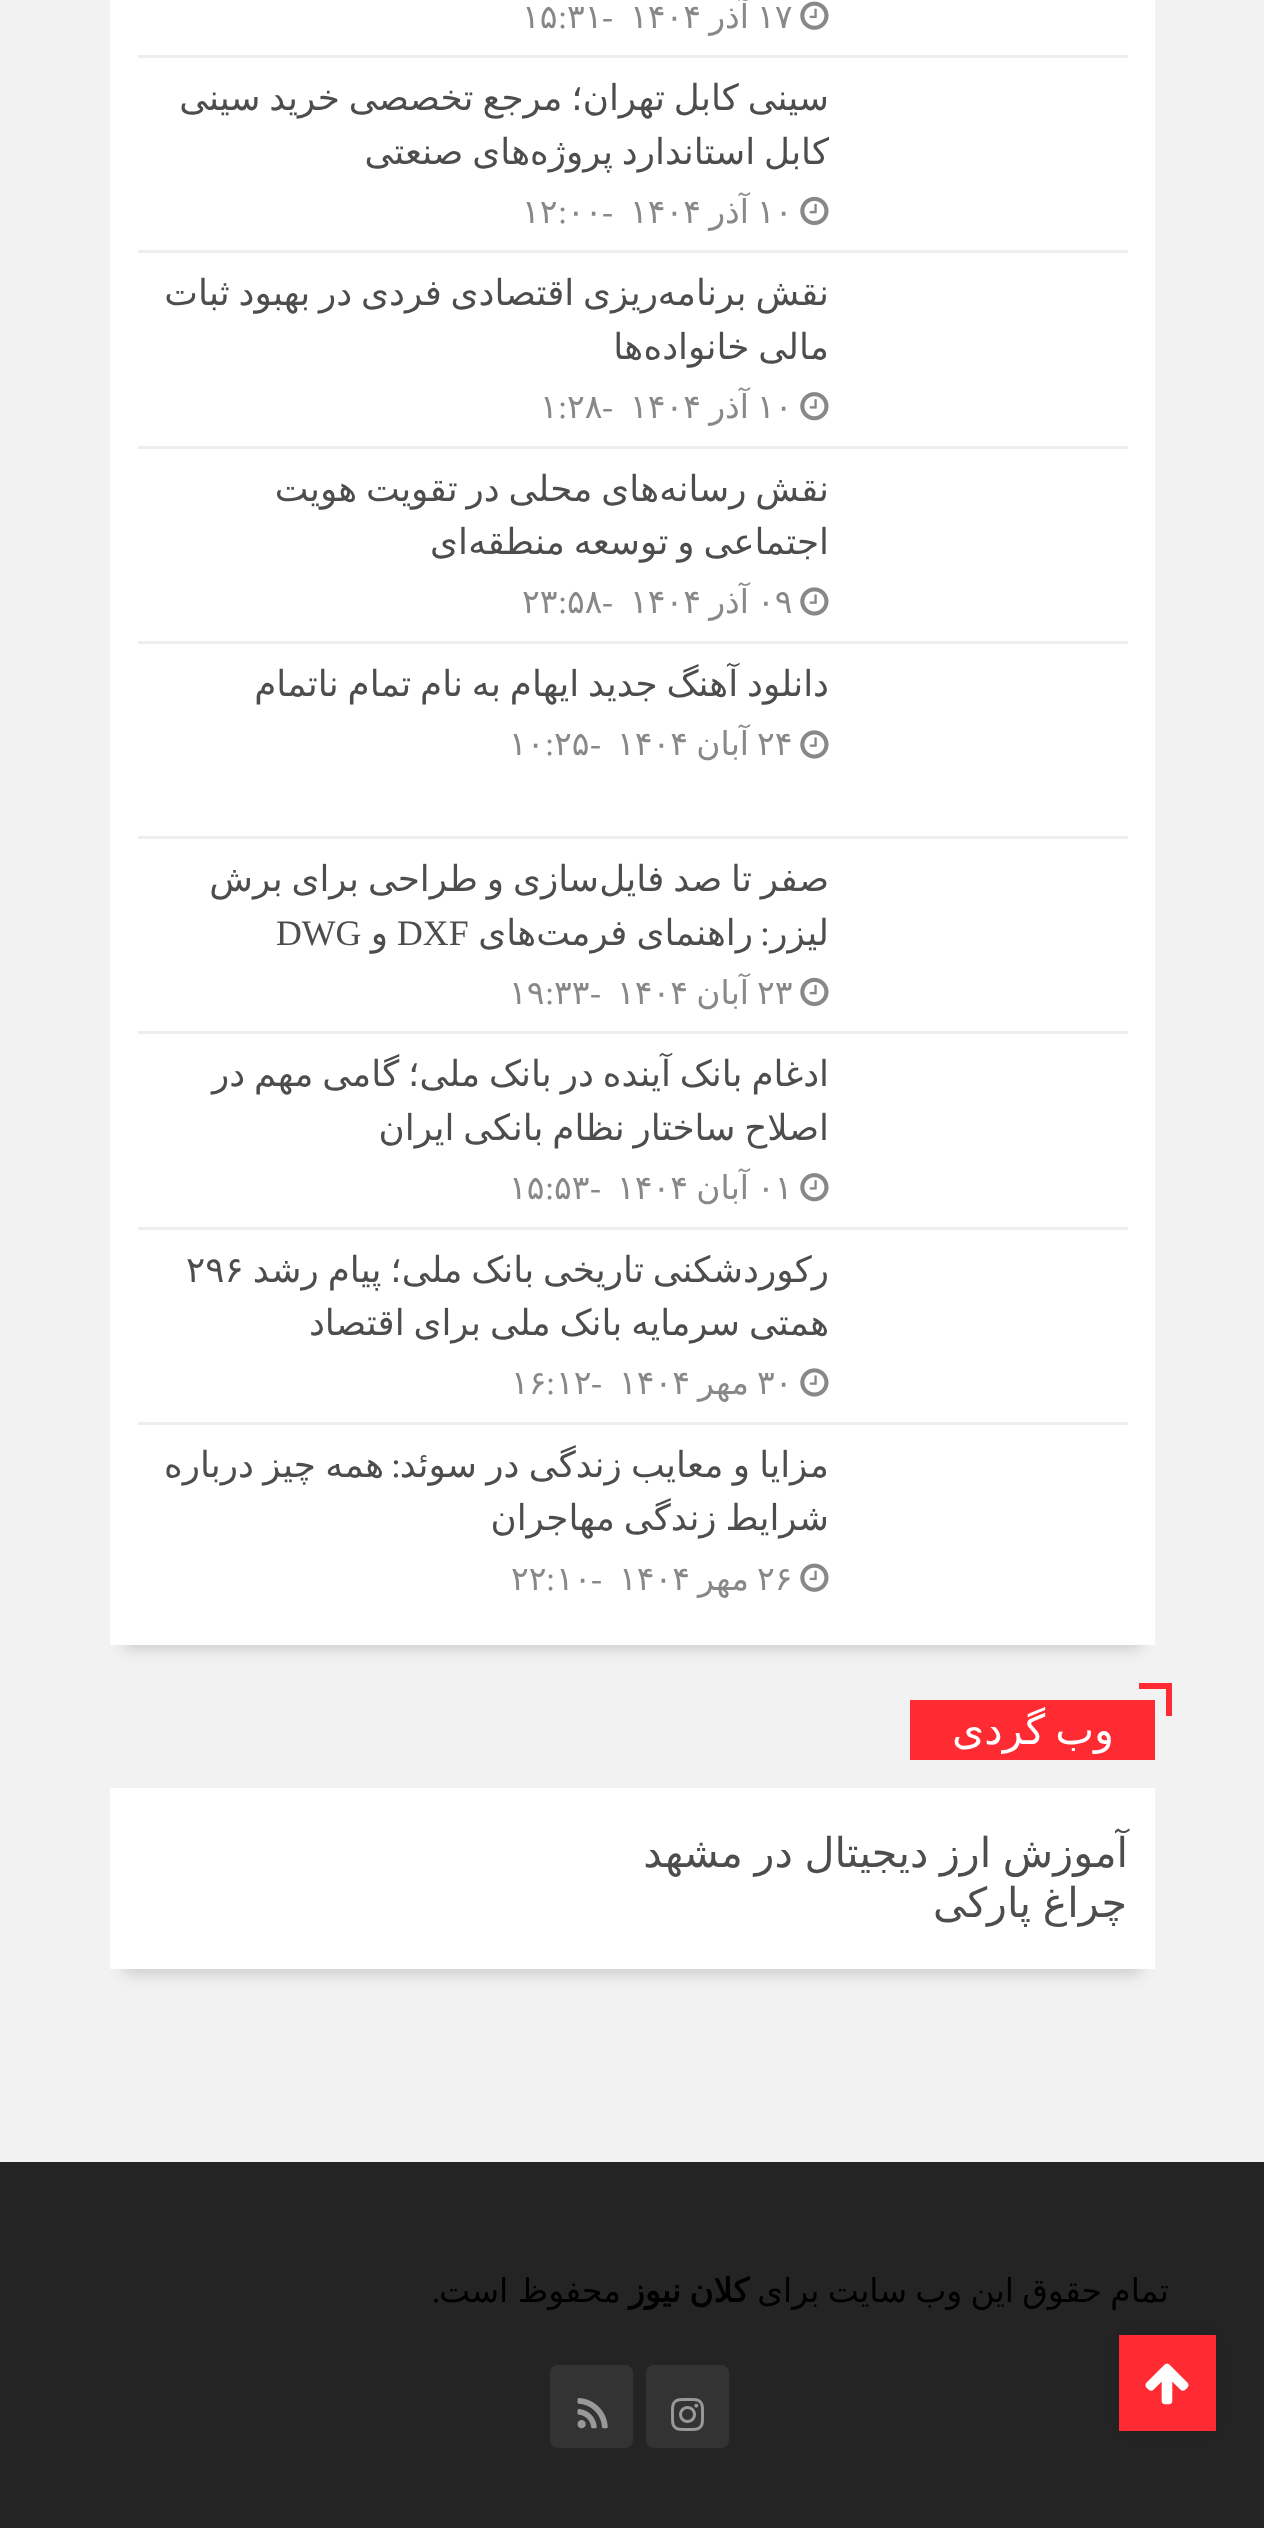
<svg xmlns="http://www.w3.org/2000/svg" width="1264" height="2528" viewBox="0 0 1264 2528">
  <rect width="100%" height="100%" fill="#f2f2f2"/>
  <path d="M124 -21h1017v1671H124z" fill="#cfcfcf" filter="blur(7px)"/>
  <path d="M110 0h1045v1645H110z" fill="#fff"/>
  <path d="M138 55h990v3H138z" fill="#eee"/>
  <image x="800" y="1" width="29" height="29" href="img/1.png"/>
  <path d="M138 250h990v3H138z" fill="#eee"/>
  <image x="800" y="196" width="29" height="30" href="img/2.png"/>
  <path d="M138 446h990v3H138z" fill="#eee"/>
  <image x="800" y="392" width="29" height="29" href="img/3.png"/>
  <path d="M138 641h990v3H138z" fill="#eee"/>
  <image x="800" y="587" width="29" height="29" href="img/4.png"/>
  <path d="M138 836h990v3H138z" fill="#eee"/>
  <image x="800" y="730" width="29" height="29" href="img/4.png"/>
  <path d="M138 1031h990v3H138z" fill="#eee"/>
  <image x="800" y="977" width="29" height="30" href="img/2.png"/>
  <path d="M138 1227h990v3H138z" fill="#eee"/>
  <image x="800" y="1173" width="29" height="29" href="img/3.png"/>
  <path d="M138 1422h990v3H138z" fill="#eee"/>
  <image x="800" y="1368" width="29" height="29" href="img/4.png"/>
  <image x="800" y="1563" width="29" height="29" href="img/1.png"/>
  <path d="M910 1700h245v60H910z" fill="#ff2b32"/>
  <path d="M1139 1683h33v6H1139z" fill="#ff2b32"/>
  <path d="M1166 1683h6v33H1166z" fill="#ff2b32"/>
  <path d="M124 1821h1017v154H124z" fill="#cfcfcf" filter="blur(7px)"/>
  <path d="M110 1788h1045v181H110z" fill="#fff"/>
  <path d="M0 2162h1264v366H0z" fill="#242424"/>
  <rect x="646" y="2365" width="83" height="83" rx="8" fill="#333"/>
  <image x="671" y="2398" width="33" height="33" href="img/5.png"/>
  <rect x="550" y="2365" width="83" height="83" rx="8" fill="#333"/>
  <image x="577" y="2398" width="31" height="31" href="img/6.png"/>
  <path d="M1128 2343h79v80H1128z" fill="#0000004d" filter="blur(9.5px)"/>
  <path d="M1119 2335h97v96H1119z" fill="#ff2b32"/>
  <image x="1145" y="2363" width="44" height="42" href="img/7.png"/>
  <text x="757" y="28" font-family="DejaVu Sans" font-size="33" fill="#888">۱۷</text>
  <text x="749" y="28" font-family="DejaVu Sans" font-size="33" direction="rtl" fill="#888">آذر</text>
  <text x="630" y="28" font-family="DejaVu Sans" font-size="33" fill="#888">۱۴۰۴</text>
  <text x="602" y="28" font-family="Liberation Serif" font-size="33" fill="#888">-</text>
  <text x="567" y="28" font-family="DejaVu Sans" font-size="33" fill="#888">۳۱</text>
  <text x="558" y="28" font-family="Liberation Serif" font-size="33" fill="#888">:</text>
  <text x="522" y="28" font-family="DejaVu Sans" font-size="33" fill="#888">۱۵</text>
  <g font-family="DejaVu Sans" font-size="35.75" direction="rtl" fill="#4d4d4d">
    <text x="829" y="110" word-spacing="-2.5">سینی کابل تهران؛ مرجع تخصصی خرید سینی</text>
    <text x="829" y="164" word-spacing="-2.5">کابل استاندارد پروژه</text>
    <text x="530" y="164" word-spacing="-2.5">های صنعتی</text>
  </g>
  <text x="757" y="223" font-family="DejaVu Sans" font-size="33" fill="#888">۱۰</text>
  <text x="749" y="223" font-family="DejaVu Sans" font-size="33" direction="rtl" fill="#888">آذر</text>
  <text x="630" y="223" font-family="DejaVu Sans" font-size="33" fill="#888">۱۴۰۴</text>
  <text x="602" y="223" font-family="Liberation Serif" font-size="33" fill="#888">-</text>
  <text x="567" y="223" font-family="DejaVu Sans" font-size="33" fill="#888">۰۰</text>
  <text x="558" y="223" font-family="Liberation Serif" font-size="33" fill="#888">:</text>
  <text x="522" y="223" font-family="DejaVu Sans" font-size="33" fill="#888">۱۲</text>
  <g font-family="DejaVu Sans" font-size="35.75" direction="rtl" fill="#4d4d4d">
    <text x="829" y="305" word-spacing="-2.5">نقش برنامه</text>
    <text x="658" y="305" word-spacing="-2.5">ریزی اقتصادی فردی در بهبود ثبات</text>
    <text x="829" y="359" word-spacing="-2.5">مالی خانواده</text>
    <text x="643" y="359">ها</text>
  </g>
  <text x="757" y="418" font-family="DejaVu Sans" font-size="33" fill="#888">۱۰</text>
  <text x="749" y="418" font-family="DejaVu Sans" font-size="33" direction="rtl" fill="#888">آذر</text>
  <text x="630" y="418" font-family="DejaVu Sans" font-size="33" fill="#888">۱۴۰۴</text>
  <text x="602" y="418" font-family="Liberation Serif" font-size="33" fill="#888">-</text>
  <text x="567" y="418" font-family="DejaVu Sans" font-size="33" fill="#888">۲۸</text>
  <text x="558" y="418" font-family="Liberation Serif" font-size="33" fill="#888">:</text>
  <text x="540" y="418" font-family="DejaVu Sans" font-size="33" fill="#888">۱</text>
  <g font-family="DejaVu Sans" font-size="35.75" direction="rtl" fill="#4d4d4d">
    <text x="829" y="501" word-spacing="-2.5">نقش رسانه</text>
    <text x="659" y="501" word-spacing="-2.5">های محلی در تقویت هویت</text>
    <text x="829" y="554" word-spacing="-2.5">اجتماعی و توسعه منطقه</text>
    <text x="468" y="554">ای</text>
  </g>
  <text x="757" y="613" font-family="DejaVu Sans" font-size="33" fill="#888">۰۹</text>
  <text x="749" y="613" font-family="DejaVu Sans" font-size="33" direction="rtl" fill="#888">آذر</text>
  <text x="630" y="613" font-family="DejaVu Sans" font-size="33" fill="#888">۱۴۰۴</text>
  <text x="602" y="613" font-family="Liberation Serif" font-size="33" fill="#888">-</text>
  <text x="567" y="613" font-family="DejaVu Sans" font-size="33" fill="#888">۵۸</text>
  <text x="558" y="613" font-family="Liberation Serif" font-size="33" fill="#888">:</text>
  <text x="522" y="613" font-family="DejaVu Sans" font-size="33" fill="#888">۲۳</text>
  <text x="829" y="696" word-spacing="-2.5" font-family="DejaVu Sans" font-size="35.75" direction="rtl" fill="#4d4d4d">دانلود آهنگ جدید ایهام به نام تمام ناتمام</text>
  <text x="757" y="755" font-family="DejaVu Sans" font-size="33" fill="#888">۲۴</text>
  <text x="749" y="755" font-family="DejaVu Sans" font-size="33" direction="rtl" fill="#888">آبان</text>
  <text x="617" y="755" font-family="DejaVu Sans" font-size="33" fill="#888">۱۴۰۴</text>
  <text x="590" y="755" font-family="Liberation Serif" font-size="33" fill="#888">-</text>
  <text x="554" y="755" font-family="DejaVu Sans" font-size="33" fill="#888">۲۵</text>
  <text x="545" y="755" font-family="Liberation Serif" font-size="33" fill="#888">:</text>
  <text x="509" y="755" font-family="DejaVu Sans" font-size="33" fill="#888">۱۰</text>
  <g font-family="DejaVu Sans" font-size="35.75" direction="rtl" fill="#4d4d4d">
    <text x="829" y="891" word-spacing="-2.5">صفر تا صد فایل</text>
    <text x="599" y="891" word-spacing="-2.5">سازی و طراحی برای برش</text>
    <text x="829" y="945">لیزر</text>
  </g>
  <text x="770" y="945" font-family="Liberation Serif" font-size="35.75" direction="rtl" fill="#4d4d4d">:</text>
  <g font-family="DejaVu Sans" font-size="35.75" direction="rtl" fill="#4d4d4d">
    <text x="753" y="945" word-spacing="-2">راهنمای فرمت</text>
    <text x="536" y="945">های</text>
  </g>
  <text x="397" y="945" font-family="Liberation Serif" font-size="35.75" fill="#4d4d4d">DXF</text>
  <text x="388" y="945" font-family="DejaVu Sans" font-size="35.75" direction="rtl" fill="#4d4d4d">و</text>
  <text x="276" y="945" font-family="Liberation Serif" font-size="35.75" fill="#4d4d4d">DWG</text>
  <text x="757" y="1004" font-family="DejaVu Sans" font-size="33" fill="#888">۲۳</text>
  <text x="749" y="1004" font-family="DejaVu Sans" font-size="33" direction="rtl" fill="#888">آبان</text>
  <text x="617" y="1004" font-family="DejaVu Sans" font-size="33" fill="#888">۱۴۰۴</text>
  <text x="590" y="1004" font-family="Liberation Serif" font-size="33" fill="#888">-</text>
  <text x="554" y="1004" font-family="DejaVu Sans" font-size="33" fill="#888">۳۳</text>
  <text x="545" y="1004" font-family="Liberation Serif" font-size="33" fill="#888">:</text>
  <text x="509" y="1004" font-family="DejaVu Sans" font-size="33" fill="#888">۱۹</text>
  <g font-family="DejaVu Sans" font-size="35.75" direction="rtl" fill="#4d4d4d">
    <text x="829" y="1086" word-spacing="-2.5">ادغام بانک آینده در بانک ملی؛ گامی مهم در</text>
    <text x="829" y="1140" word-spacing="-2.5">اصلاح ساختار نظام بانکی ایران</text>
  </g>
  <text x="757" y="1199" font-family="DejaVu Sans" font-size="33" fill="#888">۰۱</text>
  <text x="749" y="1199" font-family="DejaVu Sans" font-size="33" direction="rtl" fill="#888">آبان</text>
  <text x="617" y="1199" font-family="DejaVu Sans" font-size="33" fill="#888">۱۴۰۴</text>
  <text x="590" y="1199" font-family="Liberation Serif" font-size="33" fill="#888">-</text>
  <text x="554" y="1199" font-family="DejaVu Sans" font-size="33" fill="#888">۵۳</text>
  <text x="545" y="1199" font-family="Liberation Serif" font-size="33" fill="#888">:</text>
  <text x="509" y="1199" font-family="DejaVu Sans" font-size="33" fill="#888">۱۵</text>
  <text x="829" y="1282" word-spacing="-2.5" font-family="DejaVu Sans" font-size="35.75" direction="rtl" fill="#4d4d4d">رکوردشکنی تاریخی بانک ملی؛ پیام رشد</text>
  <text x="186" y="1282" font-family="DejaVu Sans" font-size="35.75" fill="#4d4d4d">۲۹۶</text>
  <text x="829" y="1335" word-spacing="-2.5" font-family="DejaVu Sans" font-size="35.75" direction="rtl" fill="#4d4d4d">همتی سرمایه بانک ملی برای اقتصاد</text>
  <text x="757" y="1394" font-family="DejaVu Sans" font-size="33" fill="#888">۳۰</text>
  <text x="749" y="1394" font-family="DejaVu Sans" font-size="33" direction="rtl" fill="#888">مهر</text>
  <text x="619" y="1394" font-family="DejaVu Sans" font-size="33" fill="#888">۱۴۰۴</text>
  <text x="591" y="1394" font-family="Liberation Serif" font-size="33" fill="#888">-</text>
  <text x="556" y="1394" font-family="DejaVu Sans" font-size="33" fill="#888">۱۲</text>
  <text x="546" y="1394" font-family="Liberation Serif" font-size="33" fill="#888">:</text>
  <text x="511" y="1394" font-family="DejaVu Sans" font-size="33" fill="#888">۱۶</text>
  <text x="829" y="1477" word-spacing="-2" font-family="DejaVu Sans" font-size="35.75" direction="rtl" fill="#4d4d4d">مزایا و معایب زندگی در سوئد</text>
  <text x="401" y="1477" font-family="Liberation Serif" font-size="35.75" direction="rtl" fill="#4d4d4d">:</text>
  <g font-family="DejaVu Sans" font-size="35.75" direction="rtl" fill="#4d4d4d">
    <text x="384" y="1477" word-spacing="-2">همه چیز درباره</text>
    <text x="829" y="1530" word-spacing="-2.5">شرایط زندگی مهاجران</text>
  </g>
  <text x="757" y="1590" font-family="DejaVu Sans" font-size="33" fill="#888">۲۶</text>
  <text x="749" y="1590" font-family="DejaVu Sans" font-size="33" direction="rtl" fill="#888">مهر</text>
  <text x="619" y="1590" font-family="DejaVu Sans" font-size="33" fill="#888">۱۴۰۴</text>
  <text x="591" y="1590" font-family="Liberation Serif" font-size="33" fill="#888">-</text>
  <text x="556" y="1590" font-family="DejaVu Sans" font-size="33" fill="#888">۱۰</text>
  <text x="546" y="1590" font-family="Liberation Serif" font-size="33" fill="#888">:</text>
  <text x="511" y="1590" font-family="DejaVu Sans" font-size="33" fill="#888">۲۲</text>
  <text x="1114" y="1744" word-spacing="-3" font-family="DejaVu Sans" font-size="41.25" direction="rtl" fill="#fff">وب گردی</text>
  <g font-family="DejaVu Sans" font-size="41.25" direction="rtl" fill="#4d4d4d">
    <text x="1128" y="1867" word-spacing="-1.5">آموزش ارز دیجیتال در مشهد</text>
    <text x="1127" y="1917" word-spacing="-1.5">چراغ پارکی</text>
  </g>
  <text x="1169" y="2302" word-spacing="-2.25" font-family="DejaVu Sans" font-size="33" direction="rtl" fill="#000">تمام حقوق این وب سایت برای</text>
  <text x="749" y="2302" word-spacing="-2" font-family="DejaVu Sans" font-size="33" font-weight="bold" direction="rtl" fill="#000">کلان نیوز</text>
  <text x="621" y="2302" word-spacing="-1" font-family="DejaVu Sans" font-size="33" direction="rtl" fill="#000">محفوظ است</text>
  <text x="440" y="2302" font-family="Liberation Serif" font-size="33" direction="rtl" fill="#000">.</text>
</svg>
